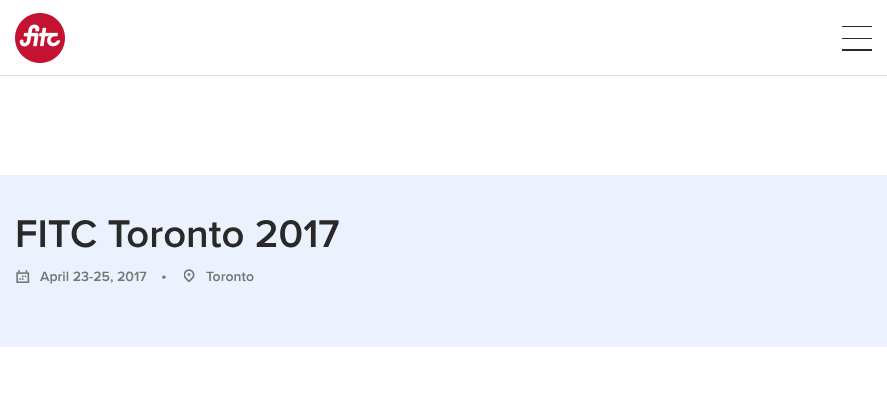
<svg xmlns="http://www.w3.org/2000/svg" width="887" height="402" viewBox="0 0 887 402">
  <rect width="100%" height="100%" fill="#fff"/>
  <path d="M0 75h887v1H0z" fill="#dbdbdb"/>
  <image x="15" y="13" width="50" height="50" href="img/1.png"/>
  <path d="M842 49h30v2H842z" fill="#292929"/>
  <path d="M842 38h30v1H842z" fill="#292929"/>
  <path d="M842 26h30v1H842z" fill="#292929"/>
  <path d="M0 175h887v172H0z" fill="#ecf2fd"/>
  <image x="16" y="270" width="14" height="13" href="img/2.png"/>
  <image x="184" y="269" width="11" height="13" href="img/3.png"/>
  <text x="15" y="247" font-family="Proxima Nova" font-size="40" font-weight="600" fill="#292929">FITC Toronto 2017</text>
  <text x="40" y="281" font-family="Proxima Nova" font-size="14" font-weight="600" fill="#757575">April 23-25, 2017</text>
  <text x="161" y="281" font-family="Proxima Nova" font-size="16" fill="#757575">•</text>
  <text x="206" y="281" font-family="Proxima Nova" font-size="14" font-weight="600" fill="#757575">Toronto</text>
</svg>
